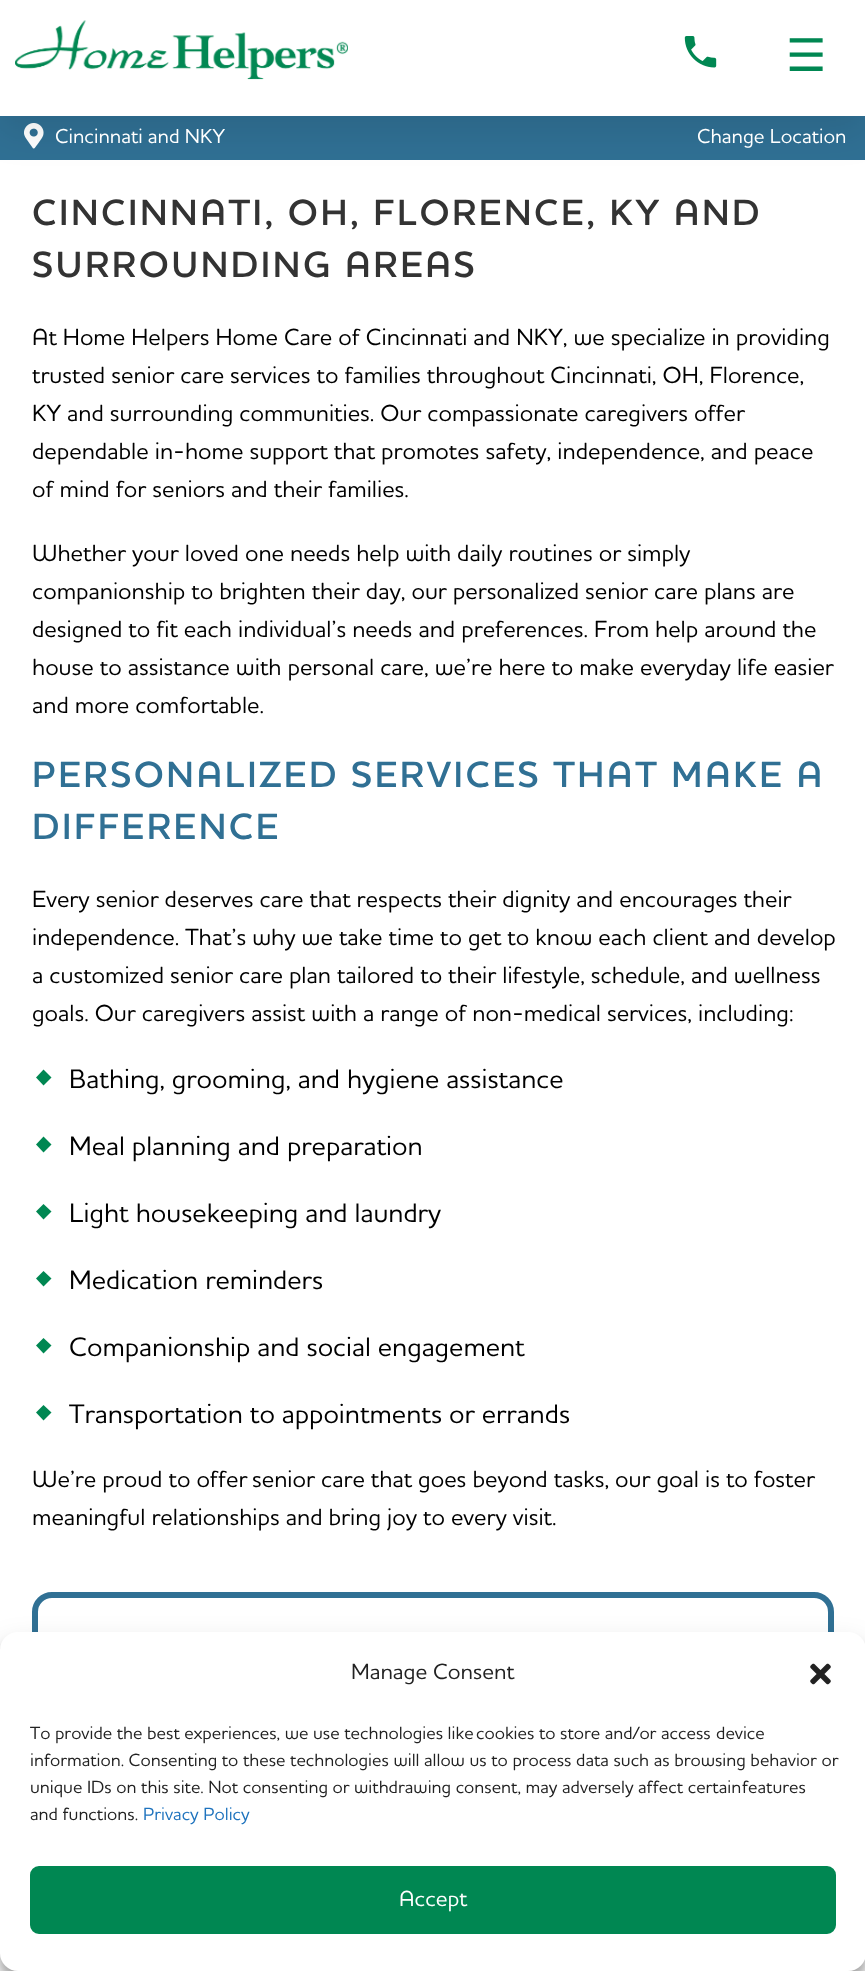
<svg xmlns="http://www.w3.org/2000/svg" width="865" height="1971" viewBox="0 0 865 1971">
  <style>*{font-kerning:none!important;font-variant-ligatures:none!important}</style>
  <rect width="100%" height="100%" fill="#fff"/>
  <path d="M0 116h865v44H0z" fill="#307094"/>
  <image x="24" y="123" width="20" height="26" href="img/3.png"/>
  <path d="M0 14h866v115H0z" fill="#0000001a" filter="blur(19.5px)"/>
  <path d="M0 0h865v116H0z" fill="#fff"/>
  <image x="15" y="20" width="333" height="60" href="img/1.png"/>
  <image x="684" y="36" width="33" height="32" href="img/2.png"/>
  <path d="M43.5 1069.5L51.5 1077.5L43.5 1085.5L36 1077.5Z" fill="#008752"/>
  <path d="M43.5 1136.5L51.5 1144.5L43.5 1152.5L36 1144.5Z" fill="#008752"/>
  <path d="M43.5 1204L51.5 1211.5L43.5 1219.5L36 1211.5Z" fill="#008752"/>
  <path d="M43.5 1271L51.5 1278.5L43.5 1286.5L36 1278.5Z" fill="#008752"/>
  <path d="M43.5 1338L51.5 1345.5L43.5 1353.5L36 1345.5Z" fill="#008752"/>
  <path d="M43.5 1405L51.5 1412.5L43.5 1420.5L36 1412.5Z" fill="#008752"/>
  <rect x="35" y="1595" width="796" height="241" rx="17" fill="none" stroke="#307094" stroke-width="6"/>
  <rect y="1641" width="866" height="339" rx="18" fill="#0000003b" filter="blur(4.5px)"/>
  <rect y="1647" width="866" height="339" rx="18" fill="#00000030" filter="blur(15px)"/>
  <rect y="1632" width="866" height="339" rx="18" fill="#fff"/>
  <image x="810" y="1663" width="21" height="22" href="img/4.png"/>
  <rect x="31" y="1867" width="804" height="66" rx="8" fill="#008752" stroke="#008752" stroke-width="2"/>
  <text x="786" y="71" font-family="DejaVu Sans" font-size="45" fill="#008752">☰</text>
  <g font-family="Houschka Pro" font-size="20.5" font-weight="500" fill="#fff">
    <text x="55" y="143">Cincinnati and NKY</text>
    <text x="697" y="143">Change Location</text>
  </g>
  <g font-family="Houschka Pro" font-size="37.25" font-weight="600" letter-spacing="2.5" fill="#333">
    <text x="32" y="225">CINCINNATI, OH, FLORENCE, KY AND</text>
    <text x="32" y="277">SURROUNDING AREAS</text>
  </g>
  <g font-family="Houschka Pro" font-size="23.75" font-weight="500" fill="#000">
    <text x="32" y="345">At Home Helpers Home Care of Cincinnati and NKY, we specialize in providing</text>
    <text x="32" y="383">trusted senior care services to families throughout Cincinnati, OH, Florence,</text>
    <text x="32" y="421">KY and surrounding communities. Our compassionate caregivers offer</text>
    <text x="32" y="459">dependable in-home support that promotes safety, independence, and peace</text>
    <text x="32" y="497">of mind for seniors and their families.</text>
    <text x="32" y="561">Whether your loved one needs help with daily routines or simply</text>
    <text x="32" y="599">companionship to brighten their day, our personalized senior care plans are</text>
    <text x="32" y="637">designed to fit each individual’s needs and preferences. From</text>
    <text x="655" y="637">help around the</text>
    <text x="32" y="675">house to assistance with personal care, we’re here to make everyday life easier</text>
    <text x="32" y="713">and more comfortable.</text>
  </g>
  <g font-family="Houschka Pro" font-size="37.25" font-weight="600" letter-spacing="2.5" fill="#307094">
    <text x="32" y="787">PERSONALIZED SERVICES THAT MAKE A</text>
    <text x="32" y="839">DIFFERENCE</text>
  </g>
  <g font-family="Houschka Pro" font-size="23.75" font-weight="500" fill="#000">
    <text x="32" y="907">Every senior deserves care that respects their dignity and encourages their</text>
    <text x="32" y="945">independence. That’s why we take time to get to know each client and develop</text>
    <text x="32" y="983">a customized senior care plan tailored to their lifestyle, schedule, and wellness</text>
    <text x="32" y="1021">goals. Our caregivers assist with a range of non-medical services, including:</text>
  </g>
  <g font-family="Houschka Pro" font-size="27.3" font-weight="500" fill="#000">
    <text x="69" y="1088">Bathing, grooming, and hygiene assistance</text>
    <text x="69" y="1155">Meal planning and preparation</text>
    <text x="69" y="1222">Light housekeeping and laundry</text>
    <text x="69" y="1289">Medication reminders</text>
    <text x="69" y="1356">Companionship and social engagement</text>
    <text x="69" y="1423">Transportation to appointments or errands</text>
  </g>
  <g font-family="Houschka Pro" font-size="23.75" font-weight="500" fill="#000">
    <text x="32" y="1487">We’re proud to offer</text>
    <text x="252" y="1487">senior care that goes beyond tasks, our goal is to foster</text>
    <text x="32" y="1525">meaningful relationships and bring joy to every visit.</text>
  </g>
  <text x="351" y="1679" font-family="Houschka Pro" font-size="22.5" font-weight="500" fill="#222">Manage Consent</text>
  <g font-family="Houschka Pro" font-size="18" font-weight="500" fill="#222">
    <text x="30" y="1739">To provide the best experiences, we use technologies like</text>
    <text x="476" y="1739">cookies to store and/or access</text>
    <text x="716" y="1739">device</text>
    <text x="30" y="1766">information. Consenting to these technologies will allow us to process data such as browsing behavior or</text>
    <text x="30" y="1793">unique IDs on this site. Not consenting or withdrawing consent, may adversely affect certain</text>
    <text x="742" y="1793">features</text>
    <text x="30" y="1820">and functions.</text>
  </g>
  <text x="143" y="1820" font-family="Houschka Pro" font-size="18" font-weight="500" fill="#1e73be">Privacy Policy</text>
  <text x="399" y="1906" font-family="Houschka Pro" font-size="22.5" font-weight="500" fill="#fff">Accept</text>
</svg>
